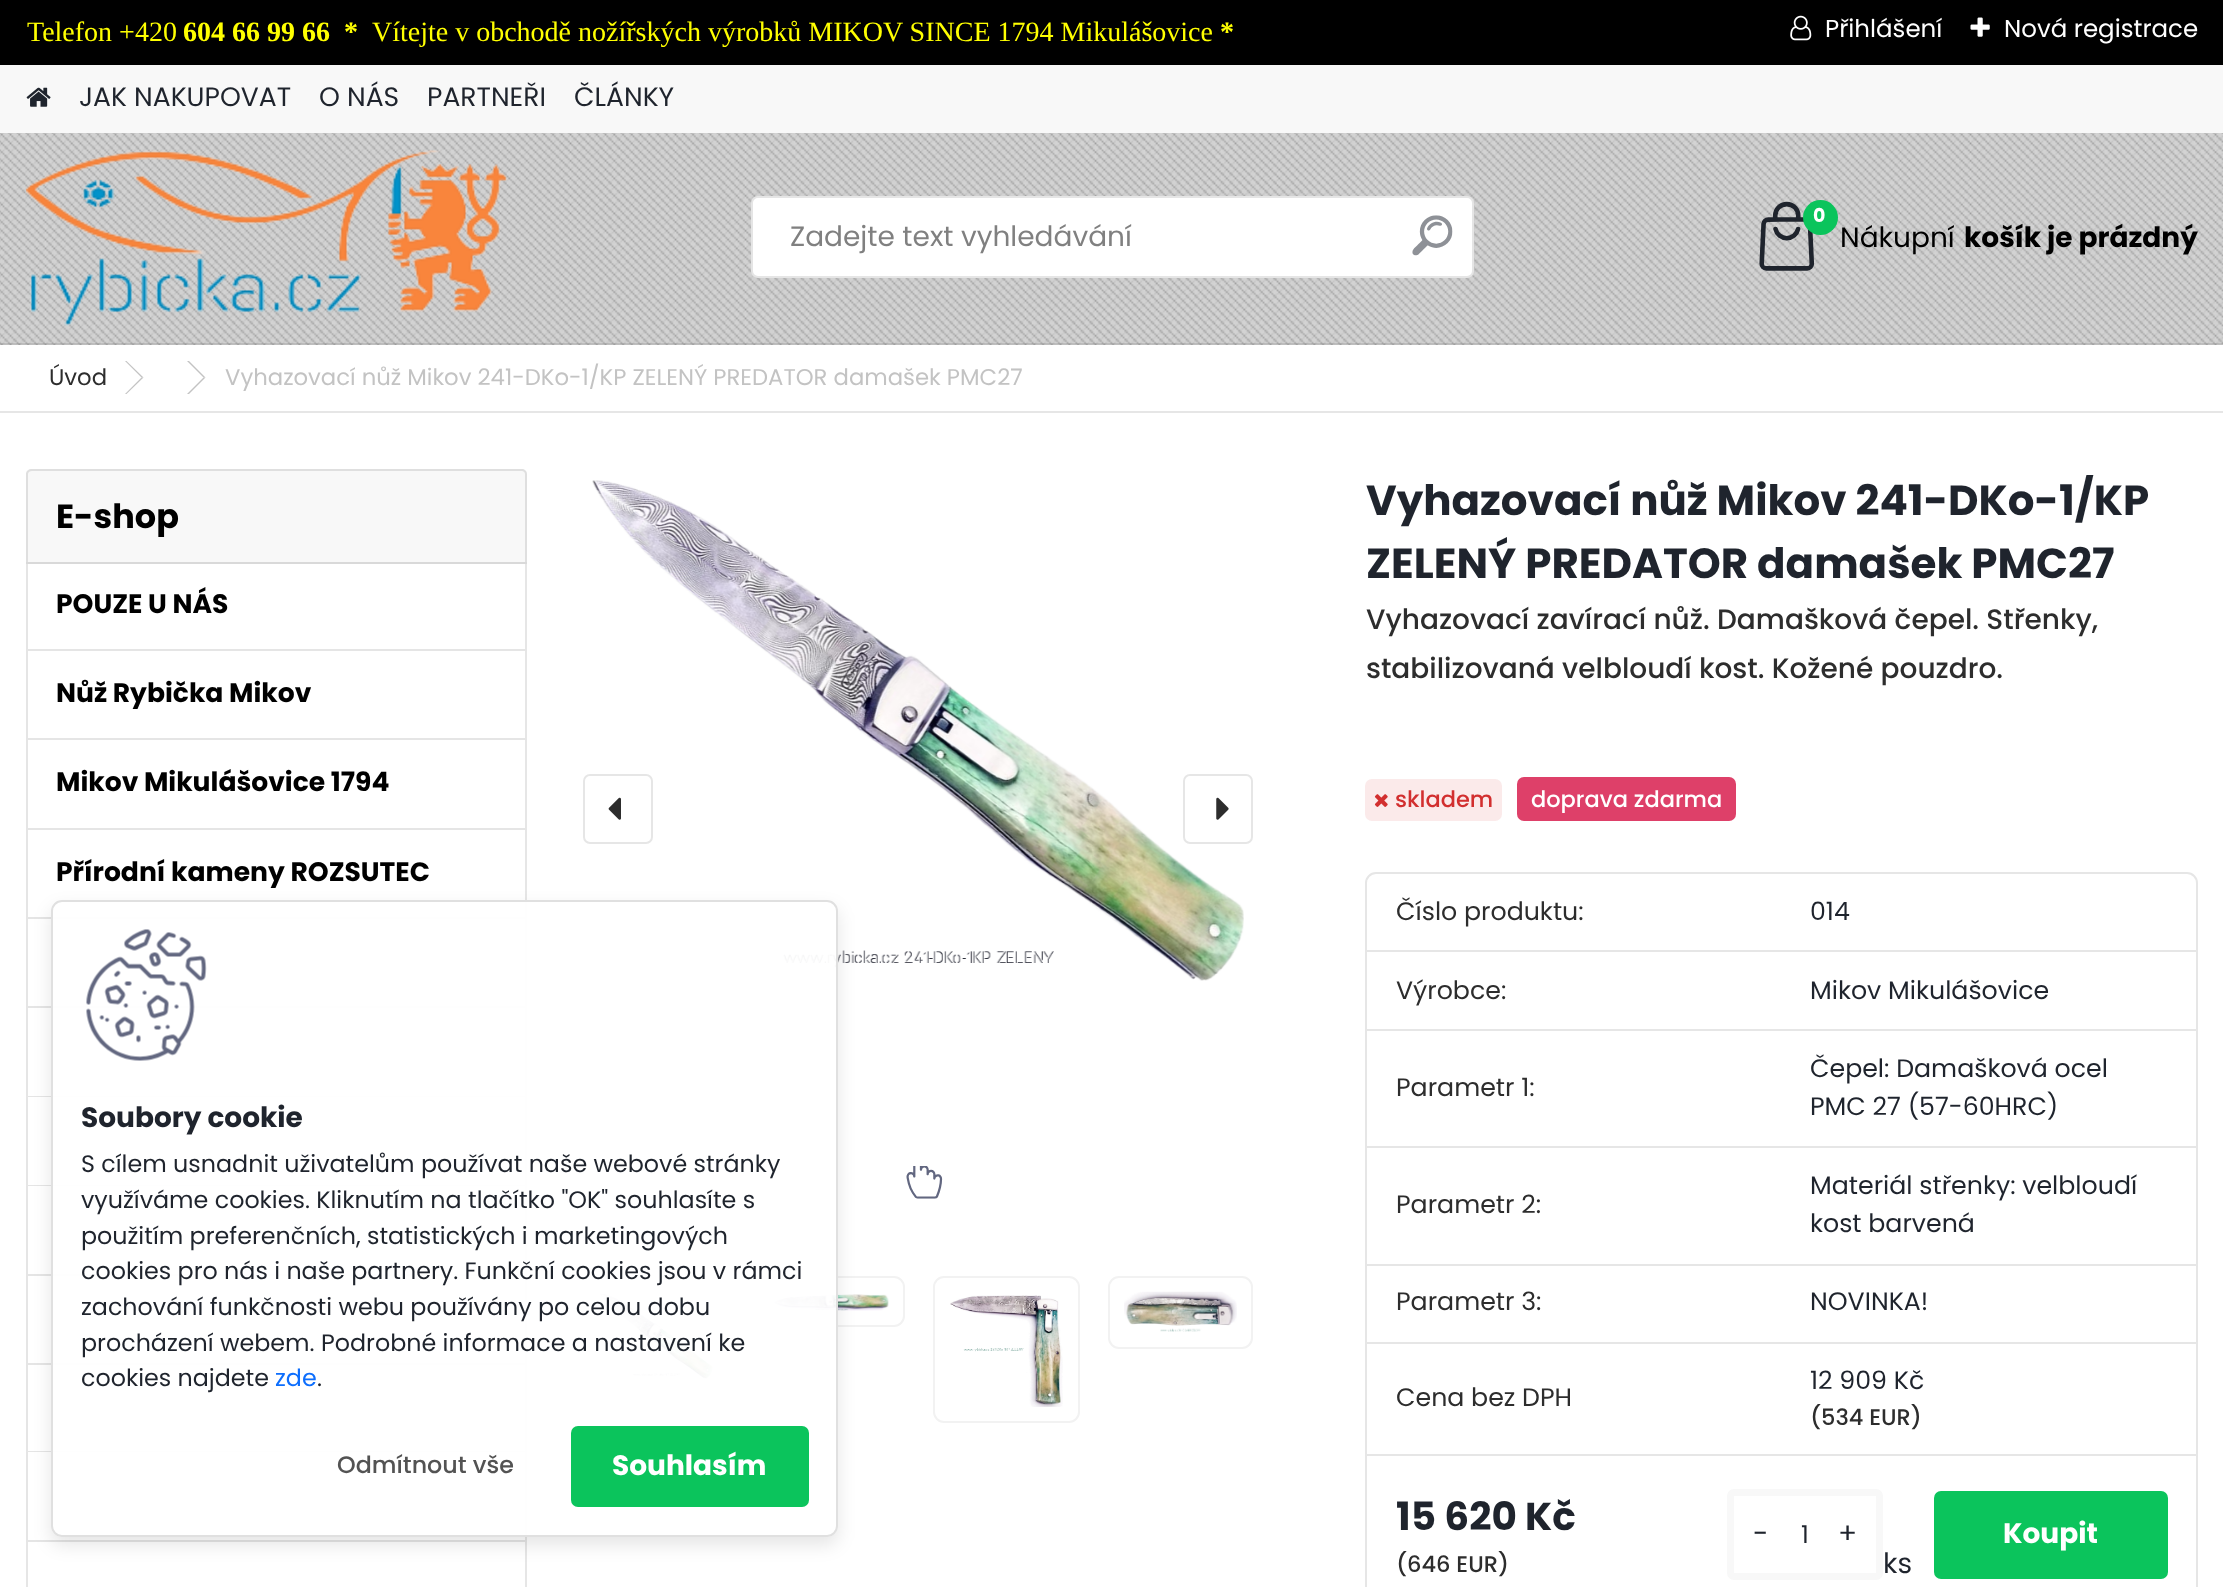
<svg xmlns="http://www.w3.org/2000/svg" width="2223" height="1587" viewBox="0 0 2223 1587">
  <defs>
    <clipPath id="clip1"><path d="M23 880H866V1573H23ZM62 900H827C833 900 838 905 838 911V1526C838 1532 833 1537 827 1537H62C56 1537 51 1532 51 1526V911C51 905 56 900 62 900Z" clip-rule="evenodd"/></clipPath>
  </defs>
  <rect width="100%" height="100%" fill="#fff"/>
  <path d="M0 0h2223v65H0z" fill="#000"/>
  <image x="1790" y="15" width="22" height="26" href="img/1.png"/>
  <image x="1970" y="17" width="20" height="20" href="img/2.png"/>
  <path d="M0 133h2223v212H0z" fill="#dbdbdb"/>
  <image x="0" y="133" width="2223" height="212" href="img/3.png"/>
  <path d="M0 343h2223v2H0z" fill="#0000001a"/>
  <path d="M0 65h2223v68H0z" fill="#f8f8f8"/>
  <image x="26" y="87" width="25" height="20" href="img/4.png"/>
  <image x="26" y="150" width="482" height="176" href="img/5.png"/>
  <rect x="751" y="196" width="723" height="82" rx="7" fill="#fff"/>
  <rect x="752" y="197" width="721" height="80" rx="6" fill="none" stroke="#0000001a" stroke-width="2"/>
  <image x="1412" y="215" width="41" height="41" href="img/6.png"/>
  <image x="1759" y="201" width="56" height="70" href="img/7.png"/>
  <circle cx="1820.5" cy="217.5" r="17.5" fill="#0bc45c"/>
  <path d="M0 411h2223v2H0z" fill="#e6e6e6"/>
  <path d="M125 361H126.5L143.5 377.5H141.5Z" fill="#c3c3c3"/>
  <path d="M141.5 377.5H143.5L126.5 394H125Z" fill="#c3c3c3"/>
  <path d="M187 361H189L205.5 377.5H203.5Z" fill="#c3c3c3"/>
  <path d="M203.5 377.5H205.5L189 394H187Z" fill="#c3c3c3"/>
  <path d="M527 562V651L525 649V562Z" fill="#e6e6e6"/>
  <path d="M527 651H26L28 649H525Z" fill="#0000001a"/>
  <path d="M26 651V562H28V649Z" fill="#0000001a"/>
  <path d="M26 474V564H527V474V562H26Z" fill="#d9d9d9"/>
  <path d="M31 469H522C525 469 527 471 527 474V562H26V474C26 471 28 469 31 469Z" fill="#f8f8f8"/>
  <path d="M32 469H522C524 469 527 471 527 474V562H26V474C26 471 29 469 32 469ZM32 471H522C523 471 525 472 525 474V562H28V474C28 472 30 471 32 471Z" fill="#dfdfdf" fill-rule="evenodd"/>
  <path d="M527 651V740L525 738V651Z" fill="#e6e6e6"/>
  <path d="M527 740H26L28 738H525Z" fill="#0000001a"/>
  <path d="M26 740V651H28V738Z" fill="#0000001a"/>
  <path d="M527 740V830L525 828V740Z" fill="#e6e6e6"/>
  <path d="M527 830H26L28 828H525Z" fill="#0000001a"/>
  <path d="M26 830V740H28V828Z" fill="#0000001a"/>
  <path d="M527 830V919L525 917V830Z" fill="#e6e6e6"/>
  <path d="M527 919H26L28 917H525Z" fill="#0000001a"/>
  <path d="M26 919V830H28V917Z" fill="#0000001a"/>
  <path d="M527 919V1008L525 1006V919Z" fill="#e6e6e6"/>
  <path d="M527 1008H26L28 1006H525Z" fill="#0000001a"/>
  <path d="M26 1008V919H28V1006Z" fill="#0000001a"/>
  <path d="M527 1008V1097L525 1096V1008Z" fill="#e6e6e6"/>
  <path d="M527 1097H26L28 1096H525Z" fill="#0000001a"/>
  <path d="M26 1097V1008H28V1096Z" fill="#0000001a"/>
  <path d="M527 1097V1186L525 1185V1097Z" fill="#e6e6e6"/>
  <path d="M527 1186H26L28 1185H525Z" fill="#0000001a"/>
  <path d="M26 1186V1097H28V1185Z" fill="#0000001a"/>
  <path d="M527 1186V1276L525 1274V1186Z" fill="#e6e6e6"/>
  <path d="M527 1276H26L28 1274H525Z" fill="#0000001a"/>
  <path d="M26 1276V1186H28V1274Z" fill="#0000001a"/>
  <path d="M527 1276V1365L525 1363V1276Z" fill="#e6e6e6"/>
  <path d="M527 1365H26L28 1363H525Z" fill="#0000001a"/>
  <path d="M26 1365V1276H28V1363Z" fill="#0000001a"/>
  <path d="M527 1365V1452L525 1451V1365Z" fill="#e6e6e6"/>
  <path d="M527 1452H26L28 1451H525Z" fill="#0000001a"/>
  <path d="M26 1452V1365H28V1451Z" fill="#0000001a"/>
  <path d="M527 1452V1542L525 1540V1452Z" fill="#e6e6e6"/>
  <path d="M527 1542H26L28 1540H525Z" fill="#0000001a"/>
  <path d="M26 1542V1452H28V1540Z" fill="#0000001a"/>
  <path d="M527 1542V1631L525 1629V1542Z" fill="#e6e6e6"/>
  <path d="M26 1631V1542H28V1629Z" fill="#e6e6e6"/>
  <image x="592" y="480" width="652" height="501" href="img/8.png"/>
  <rect x="584" y="775" width="68" height="68" rx="6" fill="none" stroke="#e6e6e6" stroke-width="2"/>
  <image x="608" y="797" width="13" height="23" href="img/9.png"/>
  <rect x="1184" y="775" width="68" height="68" rx="6" fill="none" stroke="#e6e6e6" stroke-width="2"/>
  <image x="1216" y="797" width="13" height="23" href="img/10.png"/>
  <image x="906" y="1166" width="37" height="33" href="img/11.png"/>
  <rect x="584" y="1277" width="145" height="119" rx="10" fill="none" stroke="#f2f2f2" stroke-width="2"/>
  <image x="599" y="1293" width="114" height="86" href="img/12.png"/>
  <rect x="759" y="1277" width="145" height="49" rx="10" fill="none" stroke="#f2f2f2" stroke-width="2"/>
  <image x="774" y="1294" width="115" height="17" href="img/13.png"/>
  <rect x="934" y="1277" width="145" height="145" rx="10" fill="none" stroke="#f2f2f2" stroke-width="2"/>
  <image x="950" y="1295" width="113" height="112" href="img/14.png"/>
  <rect x="1109" y="1277" width="143" height="71" rx="10" fill="none" stroke="#f2f2f2" stroke-width="2"/>
  <image x="1124" y="1291" width="113" height="41" href="img/15.png"/>
  <rect x="1365" y="779" width="137" height="42" rx="7" fill="#fbeaea"/>
  <image x="1374" y="794" width="14" height="13" href="img/16.png"/>
  <rect x="1517" y="777" width="219" height="44" rx="7" fill="#de4069"/>
  <rect x="1366" y="873" width="831" height="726" rx="10" fill="none" stroke="#e6e6e6" stroke-width="2"/>
  <path d="M1367 950h829v2H1367z" fill="#e6e6e6"/>
  <path d="M1367 1029h829v2H1367z" fill="#e6e6e6"/>
  <path d="M1367 1146h829v2H1367z" fill="#e6e6e6"/>
  <path d="M1367 1264h829v2H1367z" fill="#e6e6e6"/>
  <path d="M1367 1342h829v2H1367z" fill="#e6e6e6"/>
  <path d="M1367 1454h829v2H1367z" fill="#e6e6e6"/>
  <rect x="1730.5" y="1492.5" width="149" height="84" rx="3.5" fill="none" stroke="#f8f8f8" stroke-width="7"/>
  <rect x="1934" y="1491" width="234" height="88" rx="7" fill="#0bc45c"/>
  <g clip-path="url(#clip1)">
    <rect x="51" y="908" width="787" height="637" rx="11" fill="#0000001a" filter="blur(9px)"/>
  </g>
  <rect x="52" y="901" width="785" height="635" rx="10" fill="#fffffff2" stroke="#e0e0e0" stroke-width="2"/>
  <image x="86" y="929" width="121" height="132" href="img/17.png"/>
  <rect x="571" y="1426" width="238" height="81" rx="7" fill="#0bc45c"/>
  <text x="27" y="41" font-family="Liberation Serif" font-size="28" fill="#ff0">Telefon +420</text>
  <text x="183" y="41" font-family="Liberation Serif" font-size="28" font-weight="bold" fill="#ff0" xml:space="preserve">604 66 99 66  *</text>
  <text x="372" y="41" font-family="Liberation Serif" font-size="28" fill="#ff0">Vítejte v obchodě nožířských výrobků MIKOV SINCE 1794 Mikulášovice</text>
  <text x="1220" y="41" font-family="Liberation Serif" font-size="28" font-weight="bold" fill="#ff0">*</text>
  <g font-family="Poppins" font-size="24.5" fill="#fff">
    <text x="1825" y="37">Přihlášení</text>
    <text x="2004" y="37">Nová registrace</text>
  </g>
  <g font-family="Poppins" font-size="26.6" fill="#1f242d">
    <text x="79" y="106">JAK NAKUPOVAT</text>
    <text x="319" y="106">O NÁS</text>
    <text x="427" y="106">PARTNEŘI</text>
    <text x="574" y="106">ČLÁNKY</text>
  </g>
  <text x="790" y="246" font-family="Poppins" font-size="28" fill="#808080">Zadejte text vyhledávání</text>
  <text x="1813" y="222" font-family="Poppins" font-size="19" font-weight="bold" fill="#fff">0</text>
  <text x="1840" y="247" font-family="Poppins" font-size="28" fill="#000">Nákupní</text>
  <text x="1964" y="247" font-family="Poppins" font-size="28" font-weight="bold" fill="#000">košík je prázdný</text>
  <text x="49" y="385" font-family="Poppins" font-size="22.75" fill="#2d2d2d">Úvod</text>
  <text x="225" y="385" font-family="Poppins" font-size="22.75" fill="#c3c3c3">Vyhazovací nůž Mikov 241-DKo-1/KP ZELENÝ PREDATOR damašek PMC27</text>
  <text x="56" y="528" font-family="Poppins" font-size="33.5" font-weight="bold" fill="#000">E-shop</text>
  <g font-family="Poppins" font-size="26.6" font-weight="bold" fill="#000">
    <text x="56" y="613">POUZE U NÁS</text>
    <text x="56" y="702">Nůž Rybička Mikov</text>
    <text x="56" y="791">Mikov Mikulášovice 1794</text>
    <text x="56" y="881">Přírodní kameny ROZSUTEC</text>
  </g>
  <g font-family="Poppins" font-size="42" font-weight="bold" fill="#1f242d">
    <text x="1366" y="515">Vyhazovací nůž Mikov 241-DKo-1/KP</text>
    <text x="1366" y="578">ZELENÝ PREDATOR damašek PMC27</text>
  </g>
  <g font-family="Poppins" font-size="28" font-weight="500" fill="#2d2d2d">
    <text x="1366" y="629">Vyhazovací zavírací nůž. Damašková čepel. Střenky,</text>
    <text x="1366" y="678">stabilizovaná velbloudí kost. Kožené pouzdro.</text>
  </g>
  <text x="1395" y="807" font-family="Poppins" font-size="22.5" font-weight="500" fill="#d22f2f">skladem</text>
  <text x="1531" y="807" font-family="Poppins" font-size="22.5" font-weight="500" fill="#fff">doprava zdarma</text>
  <text x="1396" y="920" font-family="Poppins" font-size="25.25" fill="#2d2d2d">Číslo produktu:</text>
  <text x="1810" y="920" font-family="Poppins" font-size="25.25" fill="#1f242d">014</text>
  <text x="1396" y="999" font-family="Poppins" font-size="25.25" fill="#2d2d2d">Výrobce:</text>
  <text x="1810" y="999" font-family="Poppins" font-size="25.25" fill="#1f242d">Mikov Mikulášovice</text>
  <text x="1396" y="1096" font-family="Poppins" font-size="25.25" fill="#2d2d2d">Parametr 1:</text>
  <g font-family="Poppins" font-size="25.25" fill="#1f242d">
    <text x="1810" y="1077">Čepel: Damašková ocel</text>
    <text x="1810" y="1115">PMC 27 (57-60HRC)</text>
  </g>
  <text x="1396" y="1213" font-family="Poppins" font-size="25.25" fill="#2d2d2d">Parametr 2:</text>
  <g font-family="Poppins" font-size="25.25" fill="#1f242d">
    <text x="1810" y="1194">Materiál střenky: velbloudí</text>
    <text x="1810" y="1232">kost barvená</text>
  </g>
  <text x="1396" y="1310" font-family="Poppins" font-size="25.25" fill="#2d2d2d">Parametr 3:</text>
  <text x="1810" y="1310" font-family="Poppins" font-size="25.25" fill="#1f242d">NOVINKA!</text>
  <text x="1396" y="1406" font-family="Poppins" font-size="25.25" fill="#2d2d2d">Cena bez DPH</text>
  <text x="1810" y="1389" font-family="Poppins" font-size="25.25" fill="#1f242d">12 909 Kč</text>
  <text x="1810" y="1425" font-family="Poppins" font-size="22.5" font-weight="500" fill="#2d2d2d">(534 EUR)</text>
  <text x="1396" y="1530" font-family="Poppins" font-size="39" font-weight="bold" fill="#1f242d">15 620 Kč</text>
  <text x="1396" y="1572" font-family="Poppins" font-size="22.5" font-weight="500" fill="#2d2d2d">(646 EUR)</text>
  <text x="1753" y="1543" font-family="Poppins" font-size="28" fill="#1f242d">-</text>
  <text x="1801" y="1543" font-family="Poppins" font-size="24.5" fill="#1f242d">1</text>
  <text x="1838" y="1543" font-family="Poppins" font-size="28" fill="#1f242d">+</text>
  <text x="2003" y="1543" font-family="Poppins" font-size="28" font-weight="bold" fill="#fff">Koupit</text>
  <text x="1883" y="1573" font-family="Poppins" font-size="28" fill="#1f242d">ks</text>
  <text x="81" y="1127" font-family="Poppins" font-size="28" font-weight="bold" fill="#1f242d">Soubory cookie</text>
  <g font-family="Poppins" font-size="23.8" fill="#1f242d">
    <text x="81" y="1172">S cílem usnadnit uživatelům používat naše webové stránky</text>
    <text x="81" y="1208">využíváme cookies. Kliknutím na tlačítko "OK" souhlasíte s</text>
    <text x="81" y="1244">použitím preferenčních, statistických i marketingových</text>
    <text x="81" y="1279">cookies pro nás i naše partnery. Funkční cookies jsou v rámci</text>
    <text x="81" y="1315">zachování funkčnosti webu používány po celou dobu</text>
    <text x="81" y="1351">procházení webem. Podrobné informace a nastavení ke</text>
    <text x="81" y="1386">cookies najdete</text>
  </g>
  <text x="275" y="1386" font-family="Poppins" font-size="23.8" fill="#0d6efd">zde</text>
  <text x="317" y="1386" font-family="Poppins" font-size="23.8" fill="#1f242d">.</text>
  <text x="337" y="1473" font-family="Poppins" font-size="23.8" font-weight="500" fill="#535353">Odmítnout vše</text>
  <text x="612" y="1475" font-family="Poppins" font-size="28" font-weight="bold" fill="#fff">Souhlasím</text>
</svg>
